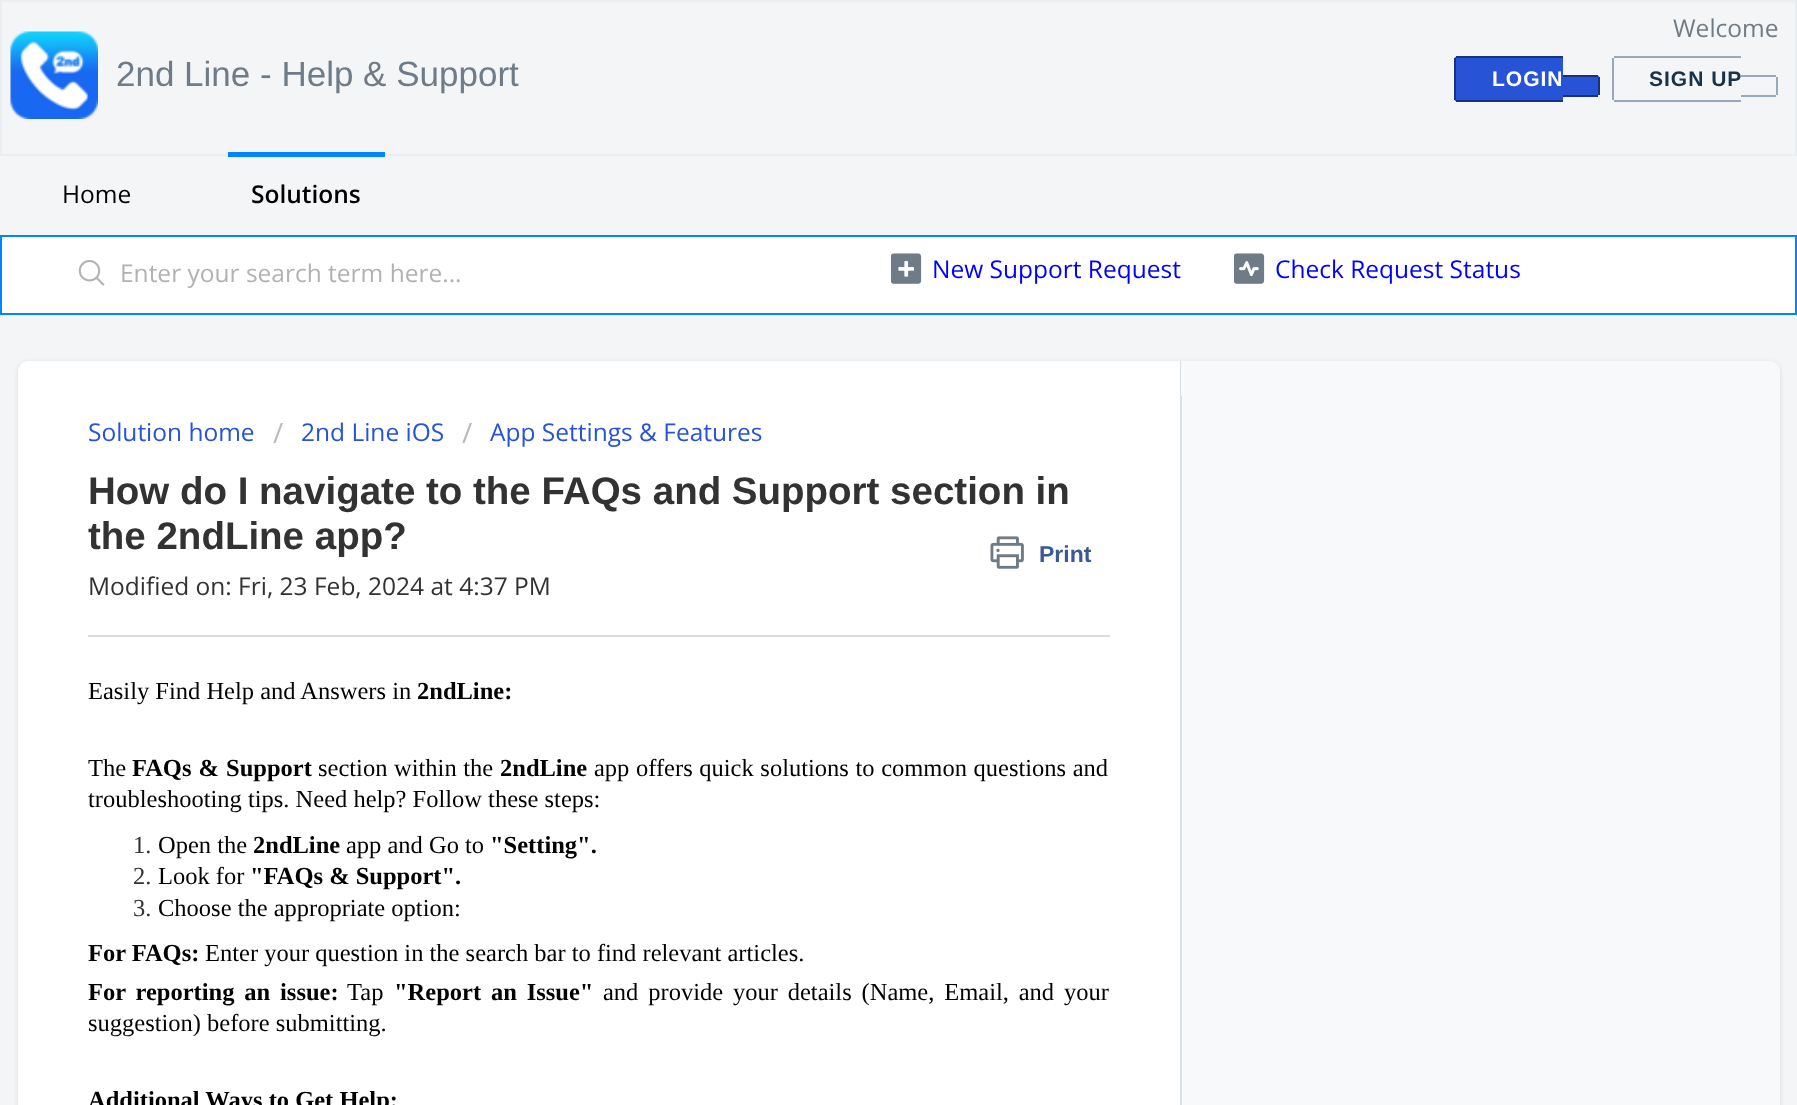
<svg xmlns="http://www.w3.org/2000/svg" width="1797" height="1105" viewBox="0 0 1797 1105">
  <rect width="100%" height="100%" fill="#f3f5f7"/>
  <path d="M1 1h1795v154H1z" fill="none" stroke="#ebeef0" stroke-width="2"/>
  <image x="10" y="31" width="88" height="88" href="img/1.png"/>
  <path d="M1458 56H1563V102H1458C1456 102 1454 100 1454 98V60C1454 58 1456 56 1458 56Z" fill="#2753d7"/>
  <path d="M1456 56h107v2H1456z" fill="#173281"/>
  <path d="M1456 100h107v2H1456z" fill="#173281"/>
  <path d="M1454 58h2v42H1454z" fill="#173281"/>
  <path d="M1563 75H1596C1598 75 1600 77 1600 79V92C1600 94 1598 96 1596 96H1563Z" fill="#2753d7"/>
  <path d="M1563 75h35v2H1563z" fill="#173281"/>
  <path d="M1598 77h2v18H1598z" fill="#173281"/>
  <path d="M1563 95h35v2H1563z" fill="#173281"/>
  <path d="M1614 56h127v2H1614z" fill="#97a9ba"/>
  <path d="M1614 100h127v2H1614z" fill="#97a9ba"/>
  <path d="M1612 58h2v42H1612z" fill="#97a9ba"/>
  <path d="M1741 75h35v2H1741z" fill="#97a9ba"/>
  <path d="M1776 77h2v18H1776z" fill="#97a9ba"/>
  <path d="M1741 95h35v2H1741z" fill="#97a9ba"/>
  <path d="M228 152h157v5H228z" fill="#0184ff"/>
  <path d="M1 236h1795v78H1z" fill="#fff" stroke="#0184ff" stroke-width="2"/>
  <image x="78" y="260" width="27" height="26" href="img/2.png"/>
  <image x="891" y="253" width="31" height="31" href="img/3.png"/>
  <image x="1234" y="253" width="31" height="31" href="img/4.png"/>
  <rect x="18" y="362" width="1762" height="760" rx="11" fill="#3f3f4426" filter="blur(2px)"/>
  <rect x="18" y="361" width="1762" height="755" rx="11" fill="#f8f9fa"/>
  <path d="M29 361H1181V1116H29C23 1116 18 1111 18 1105V372C18 366 23 361 29 361Z" fill="#fff"/>
  <path d="M1180 361h2v744H1180z" fill="#dadfe3"/>
  <path d="M1181 361H1769C1775 361 1780 366 1780 372V385C1780 391 1775 396 1769 396H1181Z" fill="#f8f9fa"/>
  <image x="990" y="536" width="34" height="33" href="img/5.png"/>
  <path d="M88 635h1022v2H88z" fill="#dcdcdc"/>
  <text x="116" y="86" font-family="Liberation Sans" font-size="35" fill="#6f7c87">2nd Line - Help &amp; Support</text>
  <text x="1673" y="37" font-family="Open Sans" font-size="24.5" fill="#6f7c87">Welcome</text>
  <text x="1492" y="86" font-family="Liberation Sans" font-size="21" font-weight="bold" letter-spacing="1" fill="#fff">LOGIN</text>
  <text x="1649" y="86" font-family="Liberation Sans" font-size="21" font-weight="bold" letter-spacing="1" fill="#183247">SIGN UP</text>
  <text x="62" y="203" font-family="Open Sans" font-size="24.5" fill="#000">Home</text>
  <text x="251" y="203" font-family="Open Sans" font-size="24.5" font-weight="600" fill="#000">Solutions</text>
  <text x="120" y="282" font-family="Open Sans" font-size="24.5" fill="#b2b2b2">Enter your search term here...</text>
  <g font-family="Open Sans" font-size="24.5" fill="#00f">
    <text x="932" y="278">New Support Request</text>
    <text x="1275" y="278">Check Request Status</text>
  </g>
  <text x="88" y="441" font-family="Open Sans" font-size="24.5" fill="#2753d7">Solution home</text>
  <text x="273" y="443" font-family="Open Sans" font-size="28" fill="#bbb">/</text>
  <text x="301" y="441" font-family="Open Sans" font-size="24.5" fill="#2753d7">2nd Line iOS</text>
  <text x="462" y="443" font-family="Open Sans" font-size="28" fill="#bbb">/</text>
  <text x="490" y="441" font-family="Open Sans" font-size="24.5" fill="#2753d7">App Settings &amp; Features</text>
  <g font-family="Liberation Sans" font-size="38.5" font-weight="bold" fill="#323232">
    <text x="88" y="504">How do I navigate to the FAQs and Support section in</text>
    <text x="88" y="549">the 2ndLine app?</text>
  </g>
  <text x="1039" y="562" font-family="Liberation Sans" font-size="23" font-weight="bold" fill="#3b5998">Print</text>
  <text x="88" y="595" font-family="Open Sans" font-size="24.5" fill="#323232">Modified on: Fri, 23 Feb, 2024 at 4:37 PM</text>
  <text x="88" y="699" font-family="Liberation Serif" font-size="24.5" fill="#000">Easily Find Help and Answers in</text>
  <text x="417" y="699" font-family="Liberation Serif" font-size="24.5" font-weight="bold" fill="#000">2ndLine:</text>
  <text x="88" y="776" font-family="Liberation Serif" font-size="24.5" fill="#000">The</text>
  <text x="132" y="776" word-spacing="1" font-family="Liberation Serif" font-size="24.5" font-weight="bold" fill="#000">FAQs &amp; Support</text>
  <text x="318" y="776" word-spacing="0.5" font-family="Liberation Serif" font-size="24.5" fill="#000">section within the</text>
  <text x="500" y="776" font-family="Liberation Serif" font-size="24.5" font-weight="bold" fill="#000">2ndLine</text>
  <g font-family="Liberation Serif" font-size="24.5" fill="#000">
    <text x="594" y="776" word-spacing="0.5">app offers quick solutions to common questions and</text>
    <text x="88" y="807">troubleshooting tips. Need help? Follow these steps:</text>
  </g>
  <text x="133" y="853" font-family="Liberation Serif" font-size="24.5" fill="#323232">1.</text>
  <text x="158" y="853" font-family="Liberation Serif" font-size="24.5" fill="#000">Open the</text>
  <text x="253" y="853" font-family="Liberation Serif" font-size="24.5" font-weight="bold" fill="#000">2ndLine</text>
  <text x="346" y="853" font-family="Liberation Serif" font-size="24.5" fill="#000">app and Go to</text>
  <text x="490" y="853" font-family="Liberation Serif" font-size="24.5" font-weight="bold" fill="#000">"Setting".</text>
  <text x="133" y="884" font-family="Liberation Serif" font-size="24.5" fill="#323232">2.</text>
  <text x="158" y="884" font-family="Liberation Serif" font-size="24.5" fill="#000">Look for</text>
  <text x="250" y="884" font-family="Liberation Serif" font-size="24.5" font-weight="bold" fill="#000">"FAQs &amp; Support".</text>
  <text x="133" y="916" font-family="Liberation Serif" font-size="24.5" fill="#323232">3.</text>
  <text x="158" y="916" font-family="Liberation Serif" font-size="24.5" fill="#000">Choose the appropriate option:</text>
  <text x="88" y="961" font-family="Liberation Serif" font-size="24.5" font-weight="bold" fill="#000">For FAQs:</text>
  <text x="205" y="961" font-family="Liberation Serif" font-size="24.5" fill="#000">Enter your question in the search bar to find relevant articles.</text>
  <text x="88" y="1000" word-spacing="3.75" font-family="Liberation Serif" font-size="24.5" font-weight="bold" fill="#000">For reporting an issue:</text>
  <text x="347" y="1000" font-family="Liberation Serif" font-size="24.5" fill="#000">Tap</text>
  <text x="394" y="1000" word-spacing="3.75" font-family="Liberation Serif" font-size="24.5" font-weight="bold" fill="#000">"Report an Issue"</text>
  <g font-family="Liberation Serif" font-size="24.5" fill="#000">
    <text x="603" y="1000" word-spacing="3.75">and provide your details (Name, Email, and your</text>
    <text x="88" y="1031">suggestion) before submitting.</text>
  </g>
  <text x="88" y="1108" font-family="Liberation Serif" font-size="24.5" font-weight="bold" fill="#000">Additional Ways to Get Help:</text>
</svg>
